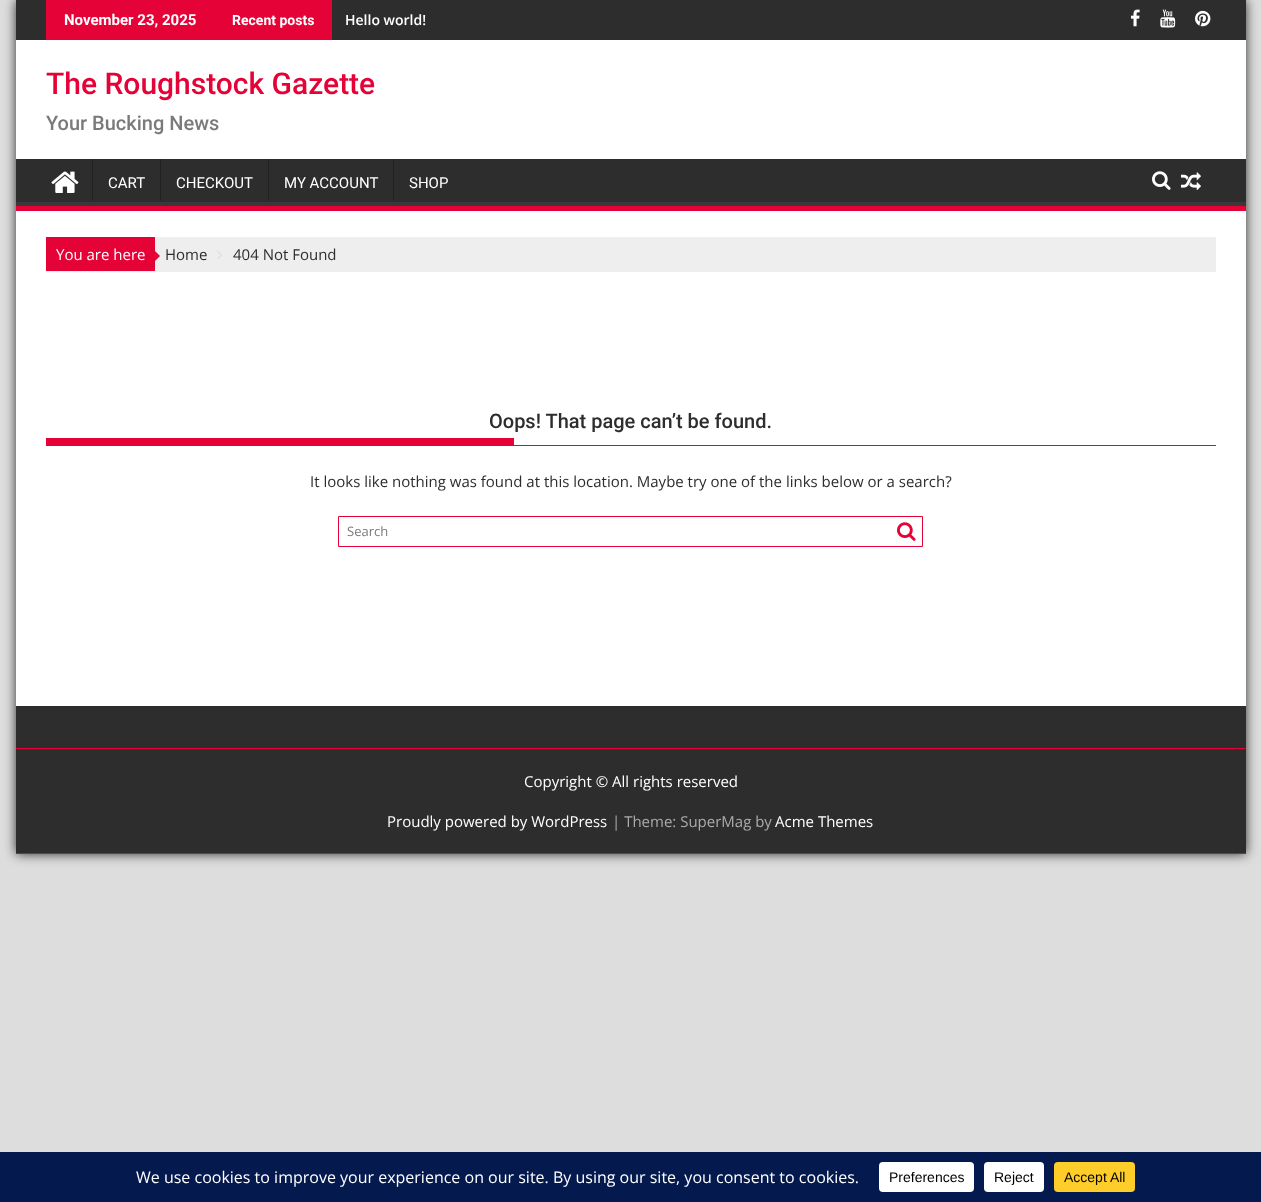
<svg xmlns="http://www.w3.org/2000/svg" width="1261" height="1202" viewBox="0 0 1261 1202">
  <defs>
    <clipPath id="clip1"><path d="M16 159h1230v47H16z"/></clipPath>
  </defs>
  <rect width="100%" height="100%" fill="#ddd"/>
  <path d="M16 0h1230v854H16z" fill="#2d2d2d" filter="blur(6px)"/>
  <path d="M16 40h1230v666H16z" fill="#fff"/>
  <path d="M16 0h1230v40H16z" fill="#2d2d2d"/>
  <path d="M46 0h286v40H46z" fill="#e50237"/>
  <image x="1130" y="9" width="10" height="18" href="img/1.png"/>
  <image x="1160" y="9" width="16" height="19" href="img/2.png"/>
  <image x="1195" y="10" width="16" height="17" href="img/3.png"/>
  <path d="M16 159h1230v43H16z" fill="#2d2d2d"/>
  <g clip-path="url(#clip1)">
    <path d="M-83 60H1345V305H-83ZM15 153H1245C1247 154 1246 168 1246 170V201L1245 202H15L14 201V153Z" fill="#393939" fill-rule="evenodd"/>
  </g>
  <path d="M16 206h1230v5H16z" fill="#e50237"/>
  <image x="51" y="171" width="28" height="22" href="img/4.png"/>
  <path d="M92 159h1v42H92z" fill="#222"/>
  <path d="M160 159h1v42H160z" fill="#222"/>
  <path d="M268 159h1v42H268z" fill="#222"/>
  <path d="M393 159h1v42H393z" fill="#222"/>
  <image x="1152" y="171" width="19" height="19" href="img/5.png"/>
  <image x="1181" y="172" width="20" height="18" href="img/6.png"/>
  <path d="M46 237h1170v35H46z" fill="#eeeeef"/>
  <path d="M46 237h109v34H46z" fill="#e50237"/>
  <path d="M155 261V251L160 256Z" fill="#e50237"/>
  <image x="217" y="251" width="5" height="8" href="img/7.png"/>
  <path d="M46 445h1170v1H46z" fill="#e50237"/>
  <path d="M46 438h468v7H46z" fill="#e50237"/>
  <path d="M338.5 516.5h584v30H338.5z" fill="none" stroke="#e50237"/>
  <image x="897" y="522" width="19" height="19" href="img/8.png"/>
  <path d="M16 706h1230v147H16z" fill="#2d2d2d"/>
  <path d="M16 853h1230v1H16z" fill="#e50237"/>
  <path d="M16 748h1230v1H16z" fill="#e50237"/>
  <path d="M0 1152h1261v50H0z" fill="#04194e"/>
  <rect x="879" y="1162" width="95" height="30" rx="4" fill="#fff"/>
  <rect x="984" y="1162" width="60" height="30" rx="4" fill="#fff"/>
  <rect x="1054" y="1162" width="81" height="30" rx="4" fill="#ffcd2a"/>
  <text x="64" y="25" font-family="Roboto" font-size="15" font-weight="bold" fill="#fff">November 23, 2025</text>
  <text x="232" y="25" font-family="Roboto" font-size="14" font-weight="bold" fill="#fff">Recent posts</text>
  <text x="345" y="25" font-family="Open Sans" font-size="14" font-weight="600" fill="#fff">Hello world!</text>
  <text x="46" y="94" font-family="Roboto" font-size="30" font-weight="500" fill="#e50237">The Roughstock Gazette</text>
  <text x="46" y="130" font-family="Roboto" font-size="20" font-weight="500" fill="#7a7a7a">Your Bucking News</text>
  <g font-family="Roboto" font-size="15" fill="#fff">
    <text x="108" y="188">CART</text>
    <text x="176" y="188">CHECKOUT</text>
    <text x="284" y="188">MY ACCOUNT</text>
    <text x="409" y="188">SHOP</text>
  </g>
  <text x="56" y="260" font-family="Open Sans" font-size="15" fill="#fff">You are here</text>
  <g font-family="Open Sans" font-size="15" fill="#2d2d2d">
    <text x="165" y="260">Home</text>
    <text x="233" y="260">404 Not Found</text>
  </g>
  <text x="489" y="428" font-family="Roboto" font-size="20" font-weight="500" fill="#2d2d2d">Oops! That page can’t be found.</text>
  <text x="310" y="487" font-family="Open Sans" font-size="15" fill="#2d2d2d">It looks like nothing was found at this location. Maybe try one of the links below or a search?</text>
  <text x="347" y="536" font-family="Open Sans" font-size="13" fill="#7a7a7a">Search</text>
  <g font-family="Open Sans" font-size="15" fill="#fff">
    <text x="524" y="787">Copyright © All rights reserved</text>
    <text x="387" y="827">Proudly powered by WordPress</text>
  </g>
  <text x="612" y="827" font-family="Open Sans" font-size="15" fill="#ababab">| Theme: SuperMag by</text>
  <text x="775" y="827" font-family="Open Sans" font-size="15" fill="#fff">Acme Themes</text>
  <text x="136" y="1183" font-family="Open Sans" font-size="16" fill="#fff">We use cookies to improve your experience on our site. By using our site, you consent to cookies.</text>
  <g font-family="Liberation Sans" font-size="14" fill="#000">
    <text x="889" y="1182">Preferences</text>
    <text x="994" y="1182">Reject</text>
    <text x="1064" y="1182">Accept All</text>
  </g>
</svg>
